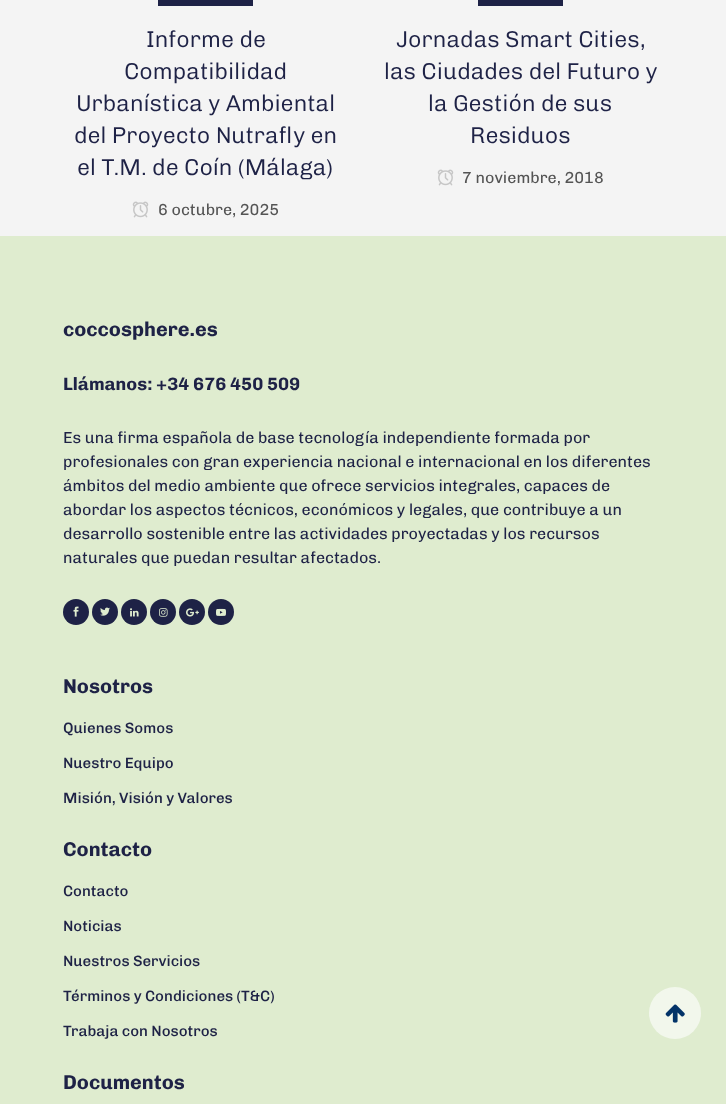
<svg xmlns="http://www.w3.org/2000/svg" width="726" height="1104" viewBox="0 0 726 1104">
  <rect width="100%" height="100%" fill="#f4f4f4"/>
  <path d="M158 0h95v6H158z" fill="#1e2246"/>
  <image x="132" y="201" width="17" height="17" href="img/1.png"/>
  <path d="M478 0h85v6H478z" fill="#1e2246"/>
  <image x="437" y="169" width="17" height="17" href="img/1.png"/>
  <path d="M0 236h726v868H0z" fill="#dfeccf"/>
  <circle cx="76" cy="612" r="13" fill="#1e2246"/>
  <image x="73" y="606" width="6" height="11" href="img/2.png"/>
  <circle cx="105" cy="612" r="13" fill="#1e2246"/>
  <image x="100" y="607" width="10" height="9" href="img/3.png"/>
  <circle cx="134" cy="612" r="13" fill="#1e2246"/>
  <image x="130" y="608" width="9" height="9" href="img/4.png"/>
  <circle cx="163" cy="612" r="13" fill="#1e2246"/>
  <image x="159" y="608" width="9" height="9" href="img/5.png"/>
  <circle cx="192" cy="612" r="13" fill="#1e2246"/>
  <image x="186" y="608" width="13" height="9" href="img/6.png"/>
  <circle cx="221" cy="612" r="13" fill="#1e2246"/>
  <image x="216" y="608" width="10" height="8" href="img/7.png"/>
  <circle cx="675" cy="1013" r="26" fill="#f2f7ec"/>
  <image x="665" y="1004" width="20" height="19" href="img/8.png"/>
  <g font-family="Chivo" font-size="23" font-weight="300" fill="#1e2246">
    <text x="146" y="47">Informe de</text>
    <text x="124" y="79">Compatibilidad</text>
    <text x="76" y="111">Urbanística y Ambiental</text>
    <text x="74" y="143">del Proyecto Nutrafly en</text>
    <text x="77" y="175">el T.M. de Coín (Málaga)</text>
  </g>
  <text x="158" y="215" font-family="Chivo" font-size="16" fill="#545454">6 octubre, 2025</text>
  <g font-family="Chivo" font-size="23" font-weight="300" fill="#1e2246">
    <text x="396" y="47">Jornadas Smart Cities,</text>
    <text x="384" y="79">las Ciudades del Futuro y</text>
    <text x="428" y="111">la Gestión de sus</text>
    <text x="470" y="143">Residuos</text>
  </g>
  <text x="462" y="183" font-family="Chivo" font-size="16" fill="#545454">7 noviembre, 2018</text>
  <text x="63" y="336" font-family="Chivo" font-size="20" font-weight="bold" fill="#1e2246">coccosphere.es</text>
  <text x="63" y="390" font-family="Chivo" font-size="18" font-weight="bold" fill="#1e2246">Llámanos: +34 676 450 509</text>
  <g font-family="Chivo" font-size="16" fill="#1e2246">
    <text x="63" y="443">Es una firma española de base tecnología independiente formada por</text>
    <text x="63" y="467">profesionales con gran experiencia nacional e internacional en los diferentes</text>
    <text x="63" y="491">ámbitos del medio ambiente que ofrece servicios integrales, capaces de</text>
    <text x="63" y="515">abordar los aspectos técnicos, económicos y legales, que contribuye a un</text>
    <text x="63" y="539">desarrollo sostenible entre las actividades proyectadas y los recursos</text>
    <text x="63" y="563">naturales que puedan resultar afectados.</text>
  </g>
  <text x="63" y="693" font-family="Chivo" font-size="20" font-weight="bold" fill="#1e2246">Nosotros</text>
  <g font-family="Chivo" font-size="15" font-weight="500" fill="#1e2246">
    <text x="63" y="733">Quienes Somos</text>
    <text x="63" y="768">Nuestro Equipo</text>
    <text x="63" y="803">Misión, Visión y Valores</text>
  </g>
  <text x="63" y="856" font-family="Chivo" font-size="20" font-weight="bold" fill="#1e2246">Contacto</text>
  <g font-family="Chivo" font-size="15" font-weight="500" fill="#1e2246">
    <text x="63" y="896">Contacto</text>
    <text x="63" y="931">Noticias</text>
    <text x="63" y="966">Nuestros Servicios</text>
    <text x="63" y="1001">Términos y Condiciones (T&amp;C)</text>
    <text x="63" y="1036">Trabaja con Nosotros</text>
  </g>
  <text x="63" y="1089" font-family="Chivo" font-size="20" font-weight="bold" fill="#1e2246">Documentos</text>
</svg>
